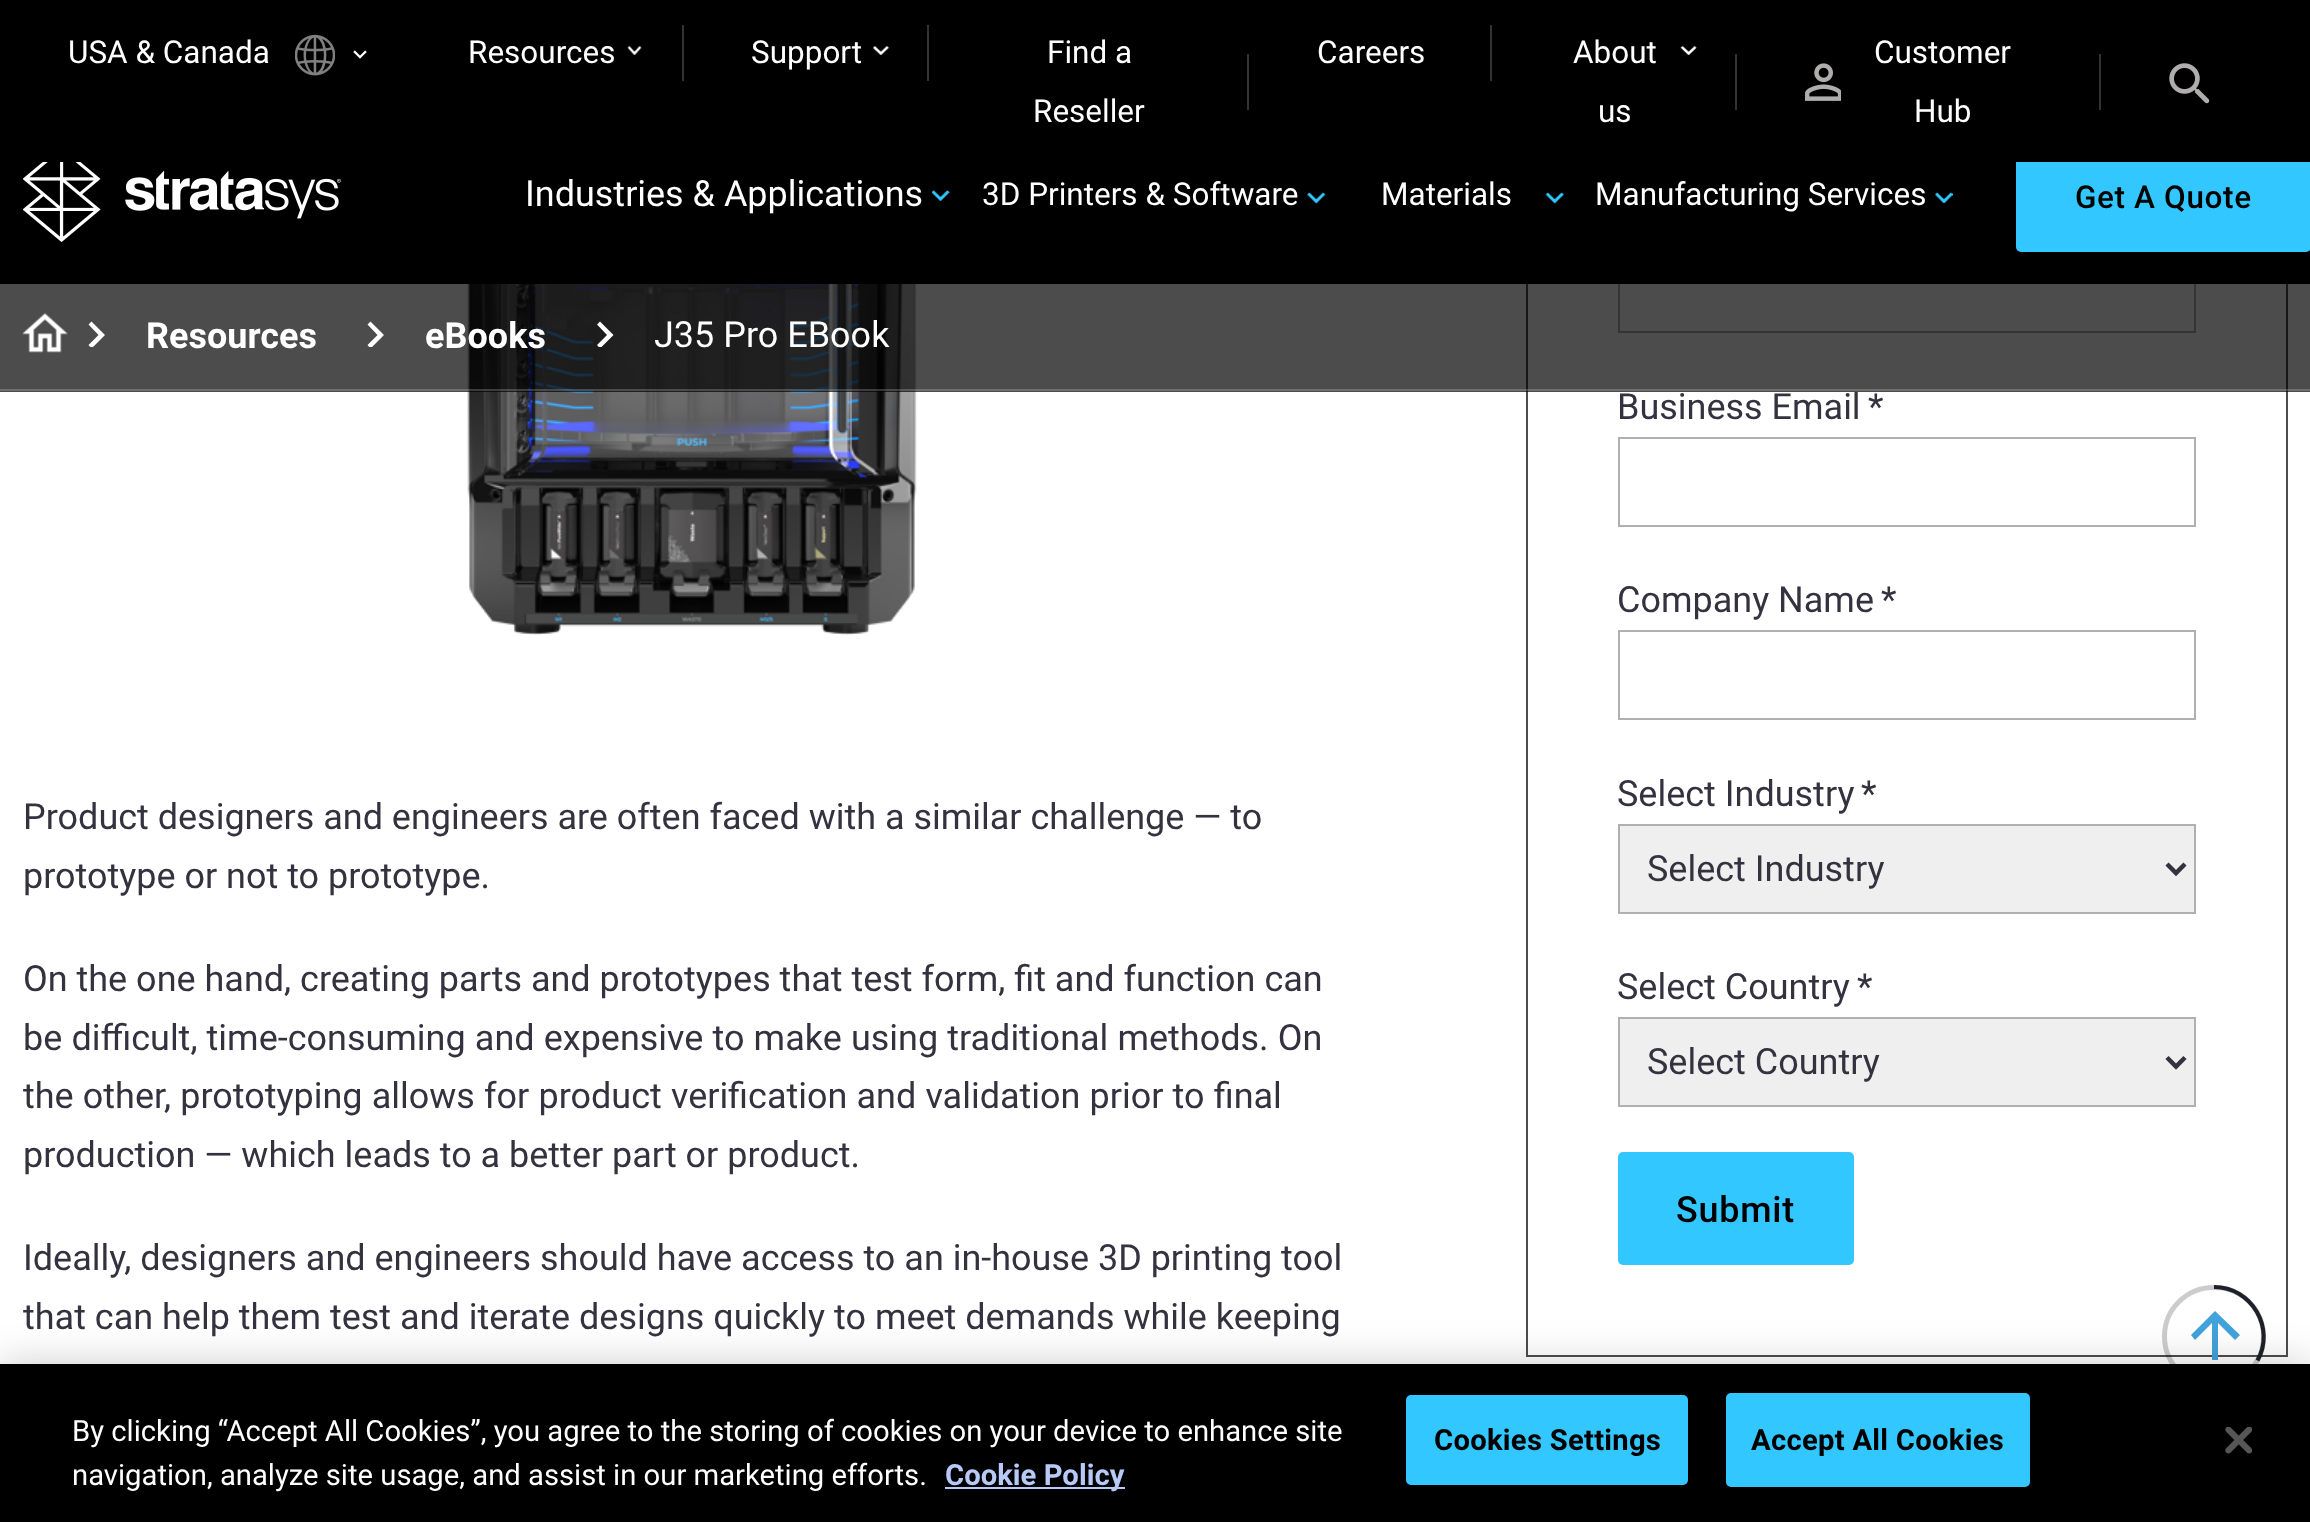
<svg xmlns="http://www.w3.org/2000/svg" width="2310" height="1522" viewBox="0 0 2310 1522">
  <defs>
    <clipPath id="clip1"><path d="M88 320h18v27H88z"/></clipPath>
    <clipPath id="clip2"><path d="M367 320h18v27H367z"/></clipPath>
    <clipPath id="clip3"><path d="M596 320h18v27H596z"/></clipPath>
  </defs>
  <rect width="100%" height="100%" fill="#fff"/>
  <path d="M1527 -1h760v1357H1527z" fill="none" stroke="#4d4d4d" stroke-width="2"/>
  <path d="M1619 244h576v88H1619z" fill="none" stroke="#afb0b0" stroke-width="2"/>
  <path d="M0 162h2310v122H0z" fill="#000"/>
  <rect x="2016" y="140" width="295" height="112" rx="5" fill="#32c8ff"/>
  <path d="M0 0h2310v162H0z" fill="#000"/>
  <image x="295" y="34" width="40" height="42" href="img/1.png"/>
  <image x="353" y="50" width="14" height="9" href="img/2.png"/>
  <image x="627" y="46" width="15" height="9" href="img/3.png"/>
  <path d="M682 25h2v56H682z" fill="#333"/>
  <image x="873" y="46" width="16" height="10" href="img/4.png"/>
  <path d="M927 25h2v56H927z" fill="#333"/>
  <path d="M1247 54h2v56H1247z" fill="#333"/>
  <path d="M1490 25h2v56H1490z" fill="#333"/>
  <image x="1680" y="46" width="17" height="10" href="img/5.png"/>
  <path d="M1735 54h2v56H1735z" fill="#333"/>
  <image x="1805" y="63" width="36" height="38" href="img/6.png"/>
  <path d="M2099 54h2v56H2099z" fill="#333"/>
  <image x="2169" y="63" width="41" height="41" href="img/7.png"/>
  <image x="23" y="162" width="318" height="80" href="img/8.png"/>
  <image x="932" y="190" width="18" height="12" href="img/9.png"/>
  <image x="1307" y="192" width="19" height="12" href="img/10.png"/>
  <image x="1545" y="192" width="19" height="12" href="img/11.png"/>
  <image x="1935" y="192" width="19" height="12" href="img/12.png"/>
  <image x="467" y="284" width="450" height="351" href="img/14.png"/>
  <path d="M0 284h2310v108H0z" fill="#000000b3"/>
  <path d="M0 389h2310v2H0z" fill="#ffffff33"/>
  <image x="22" y="313" width="46" height="40" href="img/13.png"/>
  <g clip-path="url(#clip1)">
    <path d="M91.5 321.5L88.5 324.5L98.5 335L88.5 345L91.5 348.5L105 335Z" fill="#fff"/>
  </g>
  <g clip-path="url(#clip2)">
    <path d="M370.5 321.5L367.5 324.5L377.5 335L367.5 345L370.5 348.5L384 335Z" fill="#fff"/>
  </g>
  <g clip-path="url(#clip3)">
    <path d="M600 321.5L597 324.5L607 335L597 345L600 348.5L613.5 335Z" fill="#fff"/>
  </g>
  <path d="M1619 438h576v88H1619z" fill="none" stroke="#afb0b0" stroke-width="2"/>
  <path d="M1619 631h576v88H1619z" fill="none" stroke="#afb0b0" stroke-width="2"/>
  <path d="M1619 825h576v88H1619z" fill="#efefef" stroke="#afb0b0" stroke-width="2"/>
  <path d="M2167 864L2176 873L2185 864" fill="none" stroke="#34323f" stroke-width="4.5"/>
  <path d="M1619 1018h576v88H1619z" fill="#efefef" stroke="#afb0b0" stroke-width="2"/>
  <path d="M2167 1057.5L2176 1066.5L2185 1057.5" fill="none" stroke="#34323f" stroke-width="4.5"/>
  <rect x="1618" y="1152" width="236" height="113" rx="5" fill="#32c8ff"/>
  <rect x="2164.5" y="1287.5" width="99" height="98" rx="49" fill="none" stroke="#00000033" stroke-width="5"/>
  <path d="M2214 1287C2252 1287 2275.5 1328.5 2257.5 1360.5" fill="none" stroke="#1f2029" stroke-width="4.1"/>
  <path d="M2191 1335L2195 1340L2212 1323V1360H2218V1323L2235 1340L2240 1335L2215 1311Z" fill="#42a2da"/>
  <path d="M0 1364h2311v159H0z" fill="#00000033" filter="blur(20px)"/>
  <path d="M0 1364h2310v158H0z" fill="#000"/>
  <path d="M945 1487h180v2H945z" fill="#b7caf7"/>
  <rect x="1406" y="1395" width="282" height="90" rx="5" fill="#32c8ff"/>
  <rect x="1727" y="1394" width="302" height="92" rx="4" fill="#32c8ff" stroke="#32c8ff" stroke-width="2"/>
  <image x="2225" y="1427" width="27" height="27" href="img/15.png"/>
  <g font-family="Roboto" font-size="31.5" fill="#fff">
    <text x="68" y="63">USA &amp; Canada</text>
    <text x="468" y="63">Resources</text>
    <text x="751" y="63">Support</text>
    <text x="1047" y="63">Find a</text>
    <text x="1033" y="122">Reseller</text>
    <text x="1317" y="63">Careers</text>
    <text x="1573" y="63">About</text>
    <text x="1598" y="122">us</text>
    <text x="1874" y="63">Customer</text>
    <text x="1914" y="122">Hub</text>
  </g>
  <text x="525" y="206" font-family="Roboto" font-size="36" fill="#fff">Industries &amp; Applications</text>
  <g font-family="Roboto" font-size="31.5" fill="#fff">
    <text x="982" y="205">3D Printers &amp; Software</text>
    <text x="1381" y="205">Materials</text>
    <text x="1595" y="205">Manufacturing Services</text>
  </g>
  <text x="2075" y="208" font-family="Roboto" font-size="31.5" font-weight="500" letter-spacing="0.6" fill="#000">Get A Quote</text>
  <g font-family="Roboto" font-size="36" font-weight="bold" fill="#fff">
    <text x="146" y="348">Resources</text>
    <text x="425" y="348">eBooks</text>
  </g>
  <text x="654" y="347" font-family="Roboto" font-size="36" fill="#fff">J35 Pro EBook</text>
  <g font-family="Roboto" font-size="36" fill="#34323f">
    <text x="23" y="829">Product designers and engineers are often faced with a similar challenge — to</text>
    <text x="23" y="888">prototype or not to prototype.</text>
    <text x="23" y="991">On the one hand, creating parts and prototypes that test form, fit and function can</text>
    <text x="23" y="1050" word-spacing="0.25">be difficult, time-consuming and expensive to make using traditional methods. On</text>
    <text x="23" y="1108" word-spacing="0.25">the other, prototyping allows for product verification and validation prior to final</text>
    <text x="23" y="1167">production — which leads to a better part or product.</text>
    <text x="23" y="1270">Ideally, designers and engineers should have access to an in-house 3D printing tool</text>
    <text x="23" y="1329">that can help them test and iterate designs quickly to meet demands while keeping</text>
    <text x="1617" y="419">Business Email</text>
    <text x="1868" y="419">*</text>
    <text x="1617" y="612">Company Name</text>
    <text x="1881" y="612">*</text>
    <text x="1617" y="806">Select Industry</text>
    <text x="1861" y="806">*</text>
    <text x="1647" y="881">Select Industry</text>
    <text x="1617" y="999">Select Country</text>
    <text x="1857" y="999">*</text>
    <text x="1647" y="1074">Select Country</text>
  </g>
  <text x="1676" y="1222" font-family="Roboto" font-size="36" font-weight="500" letter-spacing="0.75" fill="#000">Submit</text>
  <g font-family="Roboto" font-size="29.25" fill="#fff">
    <text x="72" y="1441">By clicking “Accept All Cookies”, you agree to the storing of cookies on your device to enhance site</text>
    <text x="72" y="1485">navigation, analyze site usage, and assist in our marketing efforts.</text>
  </g>
  <text x="945" y="1485" font-family="Roboto" font-size="29.25" font-weight="bold" fill="#b7caf7">Cookie Policy</text>
  <g font-family="Roboto" font-size="29.25" font-weight="bold" letter-spacing="0.25" fill="#000">
    <text x="1434" y="1450">Cookies Settings</text>
    <text x="1751" y="1450">Accept All Cookies</text>
  </g>
</svg>
